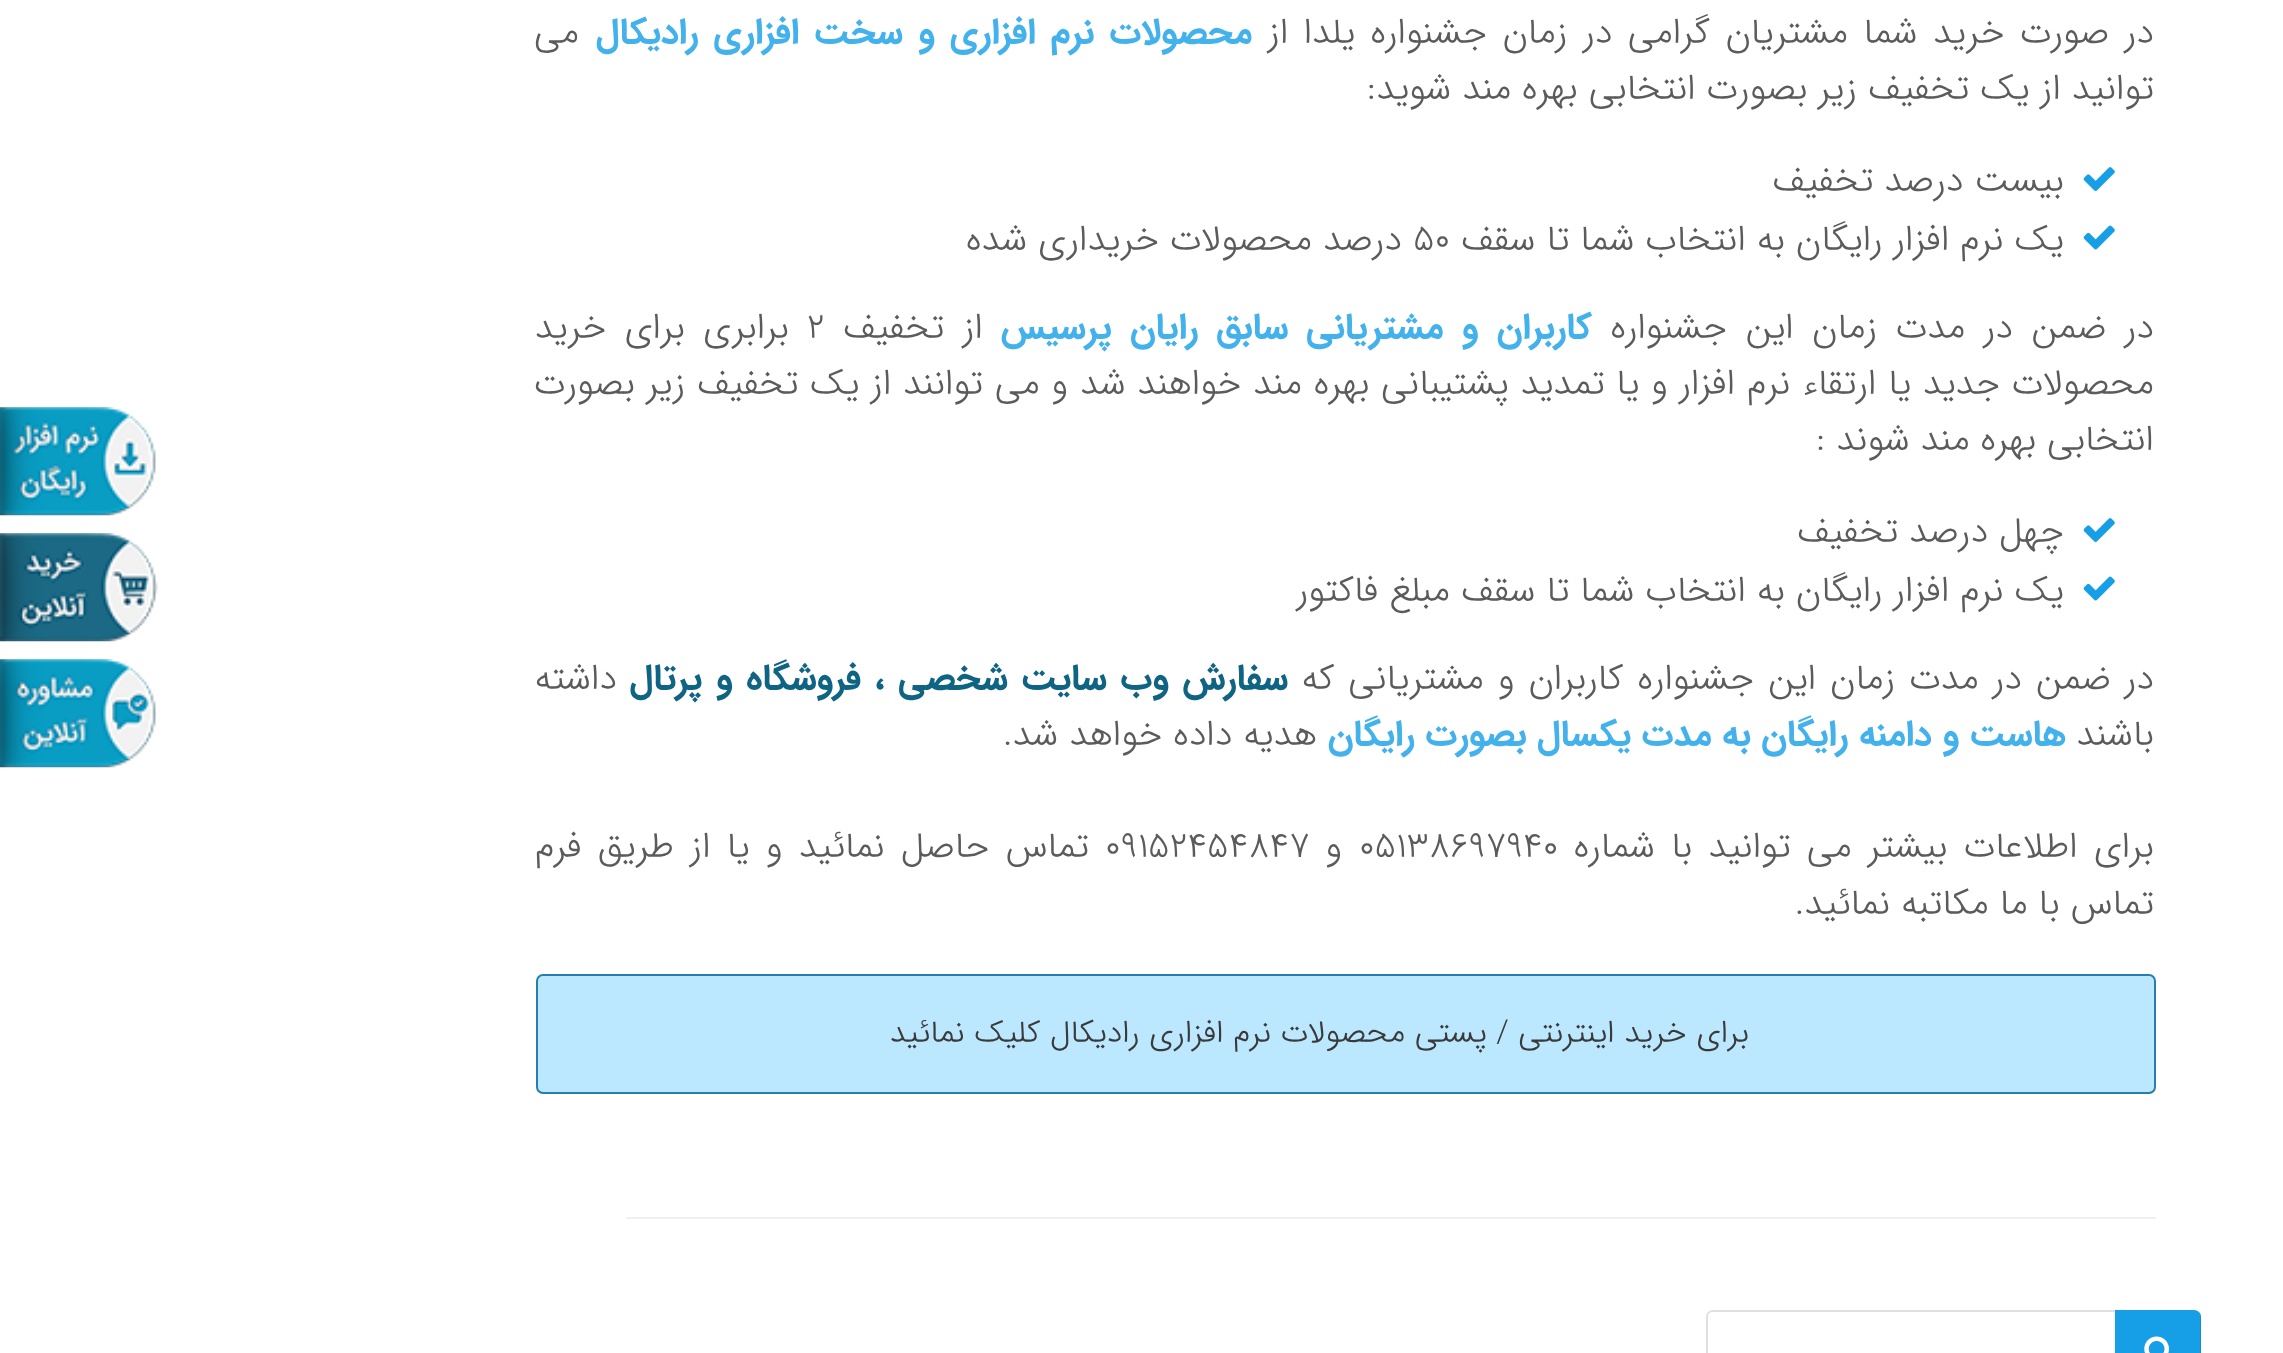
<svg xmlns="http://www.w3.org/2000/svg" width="2283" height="1353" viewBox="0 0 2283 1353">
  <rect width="100%" height="100%" fill="#fff"/>
  <path d="M626 1217h1530v2H626z" fill="#f0f0f0"/>
  <image x="2083" y="167" width="32" height="24" href="img/1.png"/>
  <image x="2083" y="225" width="32" height="25" href="img/2.png"/>
  <image x="2083" y="518" width="32" height="24" href="img/1.png"/>
  <image x="2083" y="576" width="32" height="25" href="img/2.png"/>
  <rect x="537" y="975" width="1618" height="118" rx="6" fill="#bce8ff" stroke="#287eaa" stroke-width="2"/>
  <path d="M1713 1311H2184V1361H1713C1709.5 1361 1707 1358.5 1707 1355V1317C1707 1313.5 1709.5 1311 1713 1311Z" fill="none" stroke="#e0e0e0" stroke-width="2"/>
  <path d="M2115 1310H2194C2198 1310 2201 1313 2201 1317V1353C2201 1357 2198 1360 2194 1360H2115Z" fill="#169fe6"/>
  <path d="M2115 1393V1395H2194C2198 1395 2201 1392 2201 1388V1317C2201 1316 2201 1314 2200 1313V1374C2200 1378 2203 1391 2195 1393Z" fill="#0000001a"/>
  <image x="2144" y="1336" width="25" height="17" href="img/3.png"/>
  <image x="0" y="407" width="156" height="109" href="img/4.png"/>
  <image x="0" y="533" width="158" height="109" href="img/5.png"/>
  <image x="0" y="659" width="157" height="109" href="img/6.png"/>
  <text x="2154" y="43" word-spacing="4.5" font-family="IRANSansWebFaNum" font-size="36" font-weight="300" direction="rtl" fill="#5b5b5b">در صورت خرید شما مشتریان گرامی در زمان جشنواره یلدا از</text>
  <text x="1252" y="43" word-spacing="4.5" font-family="IRANSansWebFaNum" font-size="36" font-weight="bold" direction="rtl" fill="#43b2ec">محصولات نرم افزاری و سخت افزاری رادیکال</text>
  <g font-family="IRANSansWebFaNum" font-size="36" font-weight="300" direction="rtl" fill="#5b5b5b">
    <text x="579" y="43">می</text>
    <text x="2154" y="99">توانید از یک تخفیف زیر بصورت انتخابی بهره مند شوید:</text>
    <text x="2064" y="191">بیست درصد تخفیف</text>
    <text x="2064" y="250">یک نرم افزار رایگان به انتخاب شما تا سقف</text>
  </g>
  <text x="1413" y="250" font-family="IRANSansWebFaNum" font-size="36" font-weight="300" fill="#5b5b5b">50</text>
  <g font-family="IRANSansWebFaNum" font-size="36" font-weight="300" direction="rtl" fill="#5b5b5b">
    <text x="1402" y="250">درصد محصولات خریداری شده</text>
    <text x="2154" y="338" word-spacing="7.5">در ضمن در مدت زمان این جشنواره</text>
  </g>
  <text x="1592" y="338" word-spacing="7.5" font-family="IRANSansWebFaNum" font-size="36" font-weight="bold" direction="rtl" fill="#43b2ec">کاربران و مشتریانی سابق رایان پرسیس</text>
  <text x="983" y="338" word-spacing="7.5" font-family="IRANSansWebFaNum" font-size="36" font-weight="300" direction="rtl" fill="#5b5b5b">از تخفیف</text>
  <text x="807" y="338" font-family="IRANSansWebFaNum" font-size="36" font-weight="300" fill="#5b5b5b">2</text>
  <g font-family="IRANSansWebFaNum" font-size="36" font-weight="300" direction="rtl" fill="#5b5b5b">
    <text x="789" y="338" word-spacing="7.5">برابری برای خرید</text>
    <text x="2154" y="394" word-spacing="0.75">محصولات جدید یا ارتقاء نرم افزار و یا تمدید پشتیبانی بهره مند خواهند شد و می توانند از یک تخفیف زیر بصورت</text>
    <text x="2154" y="450">انتخابی بهره مند شوند :</text>
    <text x="2064" y="542">چهل درصد تخفیف</text>
    <text x="2064" y="601">یک نرم افزار رایگان به انتخاب شما تا سقف مبلغ فاکتور</text>
    <text x="2154" y="689" word-spacing="3">در ضمن در مدت زمان این جشنواره کاربران و مشتریانی که</text>
  </g>
  <text x="1288" y="689" word-spacing="3" font-family="IRANSansWebFaNum" font-size="36" font-weight="bold" direction="rtl" fill="#0f6483">سفارش وب سايت شخصي ، فروشگاه و پرتال</text>
  <g font-family="IRANSansWebFaNum" font-size="36" font-weight="300" direction="rtl" fill="#5b5b5b">
    <text x="617" y="689">داشته</text>
    <text x="2154" y="745">باشند</text>
  </g>
  <text x="2066" y="745" font-family="IRANSansWebFaNum" font-size="36" font-weight="bold" direction="rtl" fill="#43b2ec">هاست و دامنه رايگان به مدت یکسال بصورت رایگان</text>
  <g font-family="IRANSansWebFaNum" font-size="36" font-weight="300" direction="rtl" fill="#5b5b5b">
    <text x="1317" y="745">هدیه داده خواهد شد.</text>
    <text x="2154" y="857" word-spacing="5.25">براي اطلاعات بيشتر مي توانيد با شماره</text>
  </g>
  <text x="1359" y="857" font-family="IRANSansWebFaNum" font-size="36" font-weight="300" fill="#5b5b5b">05138697940</text>
  <text x="1342" y="857" font-family="IRANSansWebFaNum" font-size="36" font-weight="300" direction="rtl" fill="#5b5b5b">و</text>
  <text x="1105" y="857" font-family="IRANSansWebFaNum" font-size="36" font-weight="300" fill="#5b5b5b">09152454847</text>
  <g font-family="IRANSansWebFaNum" font-size="36" font-weight="300" direction="rtl" fill="#5b5b5b">
    <text x="1089" y="857" word-spacing="5.25">تماس حاصل نمائيد و يا از طريق فرم</text>
    <text x="2154" y="914">تماس با ما مكاتبه نمائيد.</text>
  </g>
  <text x="1749" y="1042" font-family="IRANSansWebFaNum" font-size="31.5" font-weight="300" direction="rtl" fill="#3a3a3a">برای خرید اینترنتی / پستی محصولات نرم افزاری رادیکال کلیک نمائید</text>
</svg>
